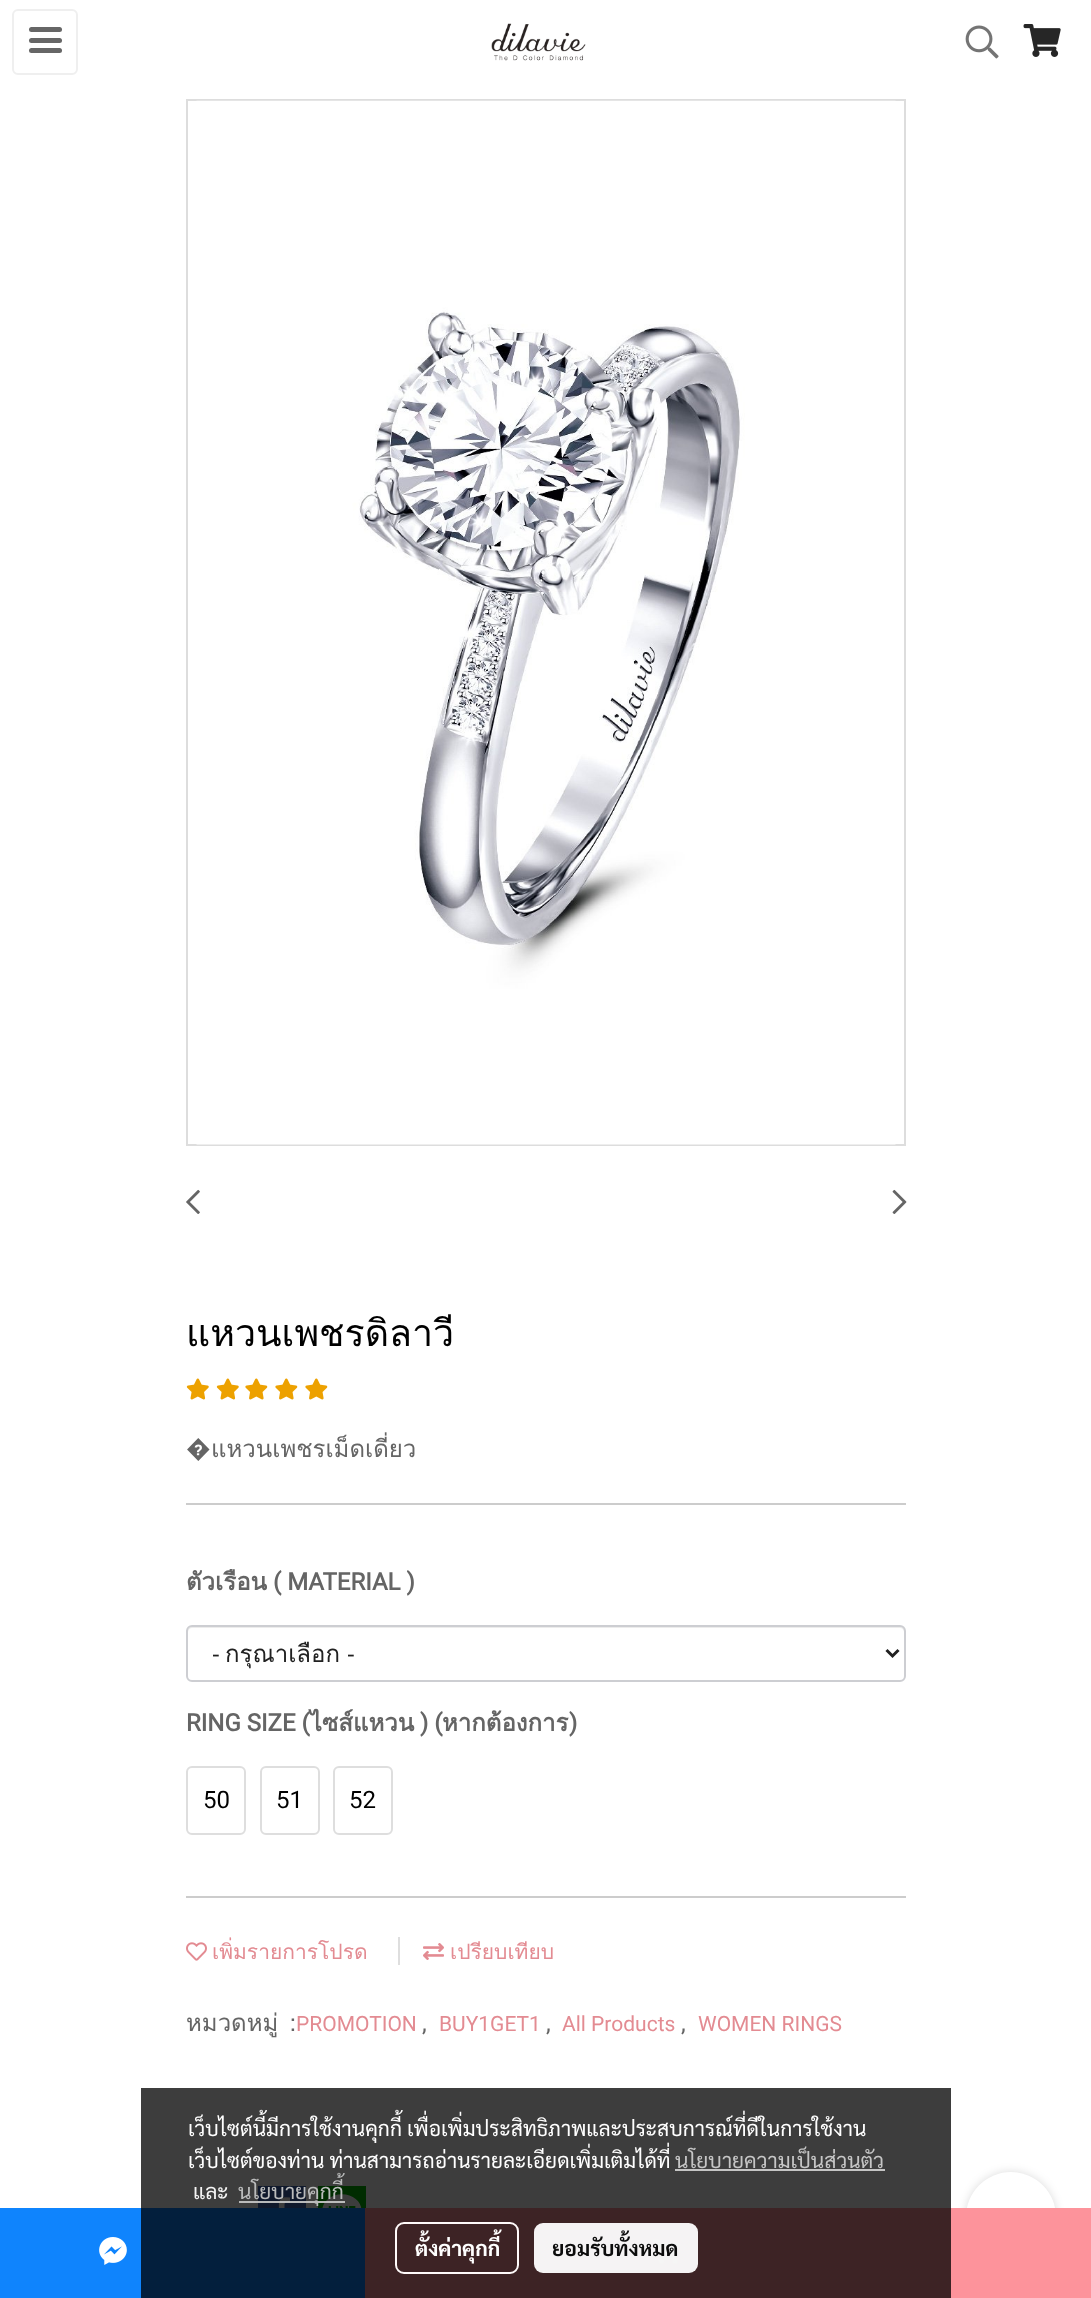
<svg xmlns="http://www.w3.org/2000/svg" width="1091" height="2298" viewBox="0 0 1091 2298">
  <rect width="100%" height="100%" fill="#fff"/>
  <rect x="13" y="10" width="64" height="64" rx="5" fill="none" stroke="#efefef" stroke-width="2"/>
  <rect x="29" y="38" width="33" height="5" rx="2.5" fill="#666"/>
  <rect x="29" y="27" width="33" height="5" rx="2.5" fill="#666"/>
  <rect x="29" y="48" width="33" height="5" rx="2.5" fill="#666"/>
  <image x="491" y="23" width="95" height="38" href="img/1.png"/>
  <image x="965" y="25" width="34" height="34" href="img/2.png"/>
  <image x="1023" y="24" width="38" height="33" href="img/3.png"/>
  <path d="M187 100h718v1045H187z" fill="none" stroke="#ddd" stroke-width="2"/>
  <image x="196" y="100" width="700" height="1045" href="img/4.png"/>
  <image x="186" y="1189" width="14" height="25" href="img/5.png"/>
  <image x="892" y="1189" width="15" height="25" href="img/6.png"/>
  <image x="186" y="1378" width="23" height="22" href="img/7.png"/>
  <image x="216" y="1378" width="23" height="22" href="img/7.png"/>
  <image x="245" y="1378" width="23" height="22" href="img/8.png"/>
  <image x="275" y="1378" width="23" height="22" href="img/8.png"/>
  <image x="305" y="1378" width="23" height="22" href="img/8.png"/>
  <path d="M186 1503h720v2H186z" fill="#ccc"/>
  <path d="M192 1628H900C902 1628 904 1630 904 1632V1678C905 1677 905 1676 905 1675V1631C905 1628 903 1626 900 1626H193C190 1626 188 1628 188 1631V1632C188 1630 190 1628 192 1628Z" fill="#ececec"/>
  <rect x="187" y="1626" width="718" height="55" rx="5" fill="none" stroke="#cdced2" stroke-width="2"/>
  <path d="M886.5 1650L892.5 1656L898.5 1650" fill="none" stroke="#212121" stroke-width="3"/>
  <rect x="187" y="1767" width="58" height="67" rx="5" fill="none" stroke="#dedede" stroke-width="2"/>
  <rect x="261" y="1767" width="58" height="67" rx="5" fill="none" stroke="#dedede" stroke-width="2"/>
  <rect x="334" y="1767" width="58" height="67" rx="5" fill="none" stroke="#dedede" stroke-width="2"/>
  <path d="M186 1896h720v2H186z" fill="#ccc"/>
  <image x="186" y="1942" width="21" height="19" href="img/9.png"/>
  <path d="M398 1937h2v28H398z" fill="#dedede"/>
  <image x="423" y="1943" width="21" height="17" href="img/10.png"/>
  <path d="M258 2186h48v22H258z" fill="#4267b2"/>
  <image x="278" y="2197" width="12" height="11" href="img/11.png"/>
  <path d="M318 2186h48v22H318z" fill="#00b800"/>
  <image x="322" y="2194" width="40" height="14" href="img/12.png"/>
  <path d="M0 2208h365v90H0z" fill="#0f84fd"/>
  <image x="99" y="2237" width="28" height="28" href="img/13.png"/>
  <rect x="966" y="2172" width="90" height="90" rx="45" fill="#00000024" filter="blur(5px)"/>
  <circle cx="1011" cy="2217" r="45" fill="#fff"/>
  <path d="M365 2208h726v90H365z" fill="#fd939b"/>
  <image x="652" y="2239" width="28" height="25" href="img/14.png"/>
  <path d="M141 2088h810v210H141z" fill="#000000c2"/>
  <path d="M675 2169h210v2H675z" fill="#c5c5c5"/>
  <path d="M239 2201h106v2H239z" fill="#c2c2c2f2"/>
  <rect x="396" y="2223" width="122" height="50" rx="8" fill="none" stroke="#fffafa" stroke-width="2"/>
  <rect x="534" y="2223" width="164" height="50" rx="9" fill="#fffffff2"/>
  <text x="186" y="1346" font-family="Loma" font-size="37.5" fill="#000">แหวนเพชรดิลาวี</text>
  <text x="186" y="1457" font-family="Roboto" font-size="24" fill="#656565">�</text>
  <text x="211" y="1457" font-family="Loma" font-size="24" fill="#656565">แหวนเพชรเม็ดเดี่ยว</text>
  <text x="186" y="1590" font-family="Loma" font-size="24" font-weight="bold" fill="#656565">ตัวเรือน</text>
  <text x="273" y="1590" font-family="Roboto" font-size="24" font-weight="bold" fill="#656565">( MATERIAL )</text>
  <text x="212" y="1662" font-family="Open Sans" font-size="24" fill="#212121">-</text>
  <text x="225" y="1662" font-family="Loma" font-size="24" fill="#212121">กรุณาเลือก</text>
  <text x="347" y="1662" font-family="Open Sans" font-size="24" fill="#212121">-</text>
  <text x="186" y="1731" font-family="Roboto" font-size="24" font-weight="bold" fill="#656565">RING SIZE (</text>
  <text x="310" y="1731" font-family="Loma" font-size="24" font-weight="bold" fill="#656565">ไซส์แหวน</text>
  <text x="420" y="1731" font-family="Roboto" font-size="24" font-weight="bold" fill="#656565">) (</text>
  <text x="442" y="1731" font-family="Loma" font-size="24" font-weight="bold" fill="#656565">หากต้องการ</text>
  <text x="569" y="1731" font-family="Roboto" font-size="24" font-weight="bold" fill="#656565">)</text>
  <g font-family="Roboto" font-size="24" fill="#000">
    <text x="203" y="1808">50</text>
    <text x="276" y="1808">51</text>
    <text x="349" y="1808">52</text>
  </g>
  <g font-family="Loma" font-size="21" fill="#e38b92">
    <text x="212" y="1959">เพิ่มรายการโปรด</text>
    <text x="450" y="1959">เปรียบเทียบ</text>
  </g>
  <text x="186" y="2031" word-spacing="3" font-family="Loma" font-size="24" fill="#656565">หมวดหมู่ :</text>
  <text x="296" y="2031" font-family="Roboto" font-size="21" fill="#e38b92">PROMOTION</text>
  <text x="422" y="2031" font-family="Roboto" font-size="24" fill="#656565">,</text>
  <text x="439" y="2031" font-family="Roboto" font-size="21" fill="#e38b92">BUY1GET1</text>
  <text x="546" y="2031" font-family="Roboto" font-size="24" fill="#656565">,</text>
  <text x="562" y="2031" font-family="Roboto" font-size="21" fill="#e38b92">All Products</text>
  <text x="681" y="2031" font-family="Roboto" font-size="24" fill="#656565">,</text>
  <text x="698" y="2031" font-family="Roboto" font-size="21" fill="#e38b92">WOMEN RINGS</text>
  <g font-family="Sarabun" font-size="21" fill="#fff">
    <text x="188" y="2136">เว็บไซต์นี้มีการใช้งานคุกกี้ เพื่อเพิ่มประสิทธิภาพและประสบการณ์ที่ดีในการใช้งาน</text>
    <text x="188" y="2168">เว็บไซต์ของท่าน ท่านสามารถอ่านรายละเอียดเพิ่มเติมได้ที่</text>
  </g>
  <text x="675" y="2168" font-family="Sarabun" font-size="21" fill="#c5c5c5">นโยบายความเป็นส่วนตัว</text>
  <text x="193" y="2199" font-family="Sarabun" font-size="21" fill="#f5f5f5">และ</text>
  <text x="238" y="2199" font-family="Sarabun" font-size="21" fill="#babbbb">นโยบายคุกกี้</text>
  <text x="415" y="2256" font-family="Sarabun" font-size="21" font-weight="bold" fill="#fff">ตั้งค่าคุกกี้</text>
  <text x="552" y="2256" font-family="Sarabun" font-size="21" font-weight="bold" fill="#0c0c0c">ยอมรับทั้งหมด</text>
</svg>
